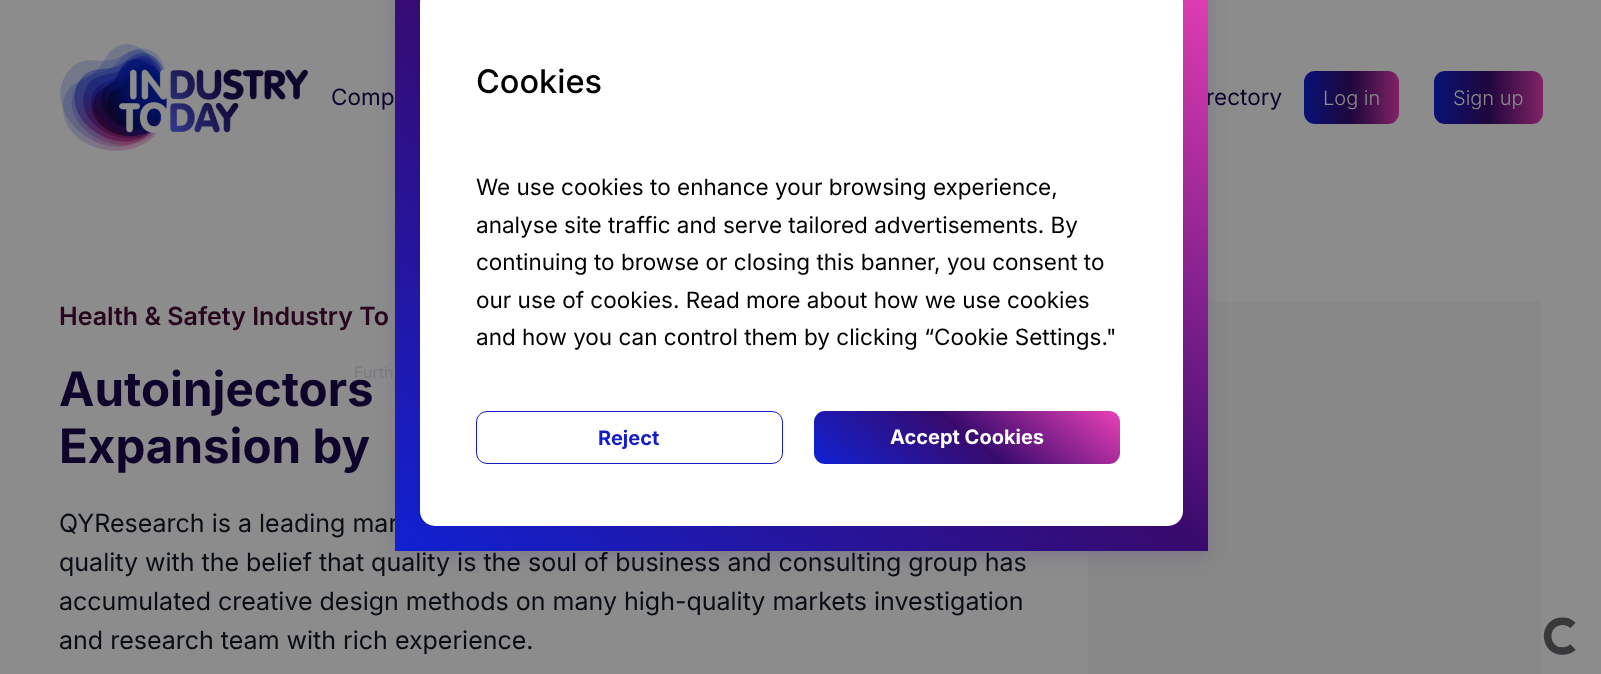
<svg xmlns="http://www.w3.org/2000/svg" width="1601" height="674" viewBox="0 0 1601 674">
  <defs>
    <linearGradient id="g1" gradientUnits="userSpaceOnUse" x1="1304" y1="98" x2="1399" y2="98"><stop offset="0" stop-color="#091274"/><stop offset="0.5" stop-color="#1f063c"/><stop offset="1" stop-color="#812365"/></linearGradient>
    <linearGradient id="g2" gradientUnits="userSpaceOnUse" x1="1434" y1="98" x2="1543" y2="98"><stop offset="0" stop-color="#091274"/><stop offset="0.5" stop-color="#1f063c"/><stop offset="1" stop-color="#812365"/></linearGradient>
    <linearGradient id="g3" gradientUnits="userSpaceOnUse" x1="522" y1="643" x2="1081" y2="-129"><stop offset="0" stop-color="#1021d3"/><stop offset="0.5" stop-color="#380a6d"/><stop offset="1" stop-color="#ea40b7"/></linearGradient>
    <linearGradient id="g4" gradientUnits="userSpaceOnUse" x1="894" y1="528" x2="1040" y2="347"><stop offset="0" stop-color="#1021d3"/><stop offset="0.51" stop-color="#380a6d"/><stop offset="1" stop-color="#ea40b7"/></linearGradient>
  </defs>
  <rect width="100%" height="100%" fill="#8c8c8c"/>
  <path d="M1088 301h453v373H1088z" fill="#888"/>
  <path d="M395 -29h813v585H395z" fill="#48268333" filter="blur(9.5px)"/>
  <image x="60" y="43" width="248" height="108" href="img/1.png"/>
  <rect x="1304" y="71" width="95" height="53" rx="11" fill="url(#g1)"/>
  <rect x="1434" y="71" width="109" height="53" rx="11" fill="url(#g2)"/>
  <path d="M1573 647C1570.5 649.5 1566.5 651 1562.5 651C1544.5 651.5 1542 625 1559.5 621.5C1564.5 620.5 1569.5 622 1573 625.5" fill="none" stroke="#37383a" stroke-width="7.5"/>
  <g font-family="Inter" font-size="22.5" fill="#0d032b">
    <text x="331" y="105">Comp</text>
    <text x="1206" y="105">rectory</text>
  </g>
  <g font-family="Inter" font-size="20" font-weight="300" fill="#8c8c8c">
    <text x="1323" y="105">Log in</text>
    <text x="1453" y="105">Sign up</text>
  </g>
  <text x="59" y="325" font-family="Inter" font-size="25" font-weight="600" fill="#27051e">Health &amp; Safety Industry To</text>
  <text x="59" y="406" font-family="Inter" font-size="47.5" font-weight="bold" fill="#0d032b">Autoinjectors</text>
  <text x="354" y="378" font-family="Inter" font-size="16" fill="#7b7a7f">Furth</text>
  <text x="59" y="463" font-family="Inter" font-size="47.5" font-weight="bold" fill="#0d032b">Expansion by</text>
  <text x="59" y="532" font-family="Inter" font-size="25" fill="#080d14">QYResearch is a leading mar</text>
  <path d="M395 0h813v551H395z" fill="url(#g3)"/>
  <rect x="420" y="-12" width="763" height="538" rx="15" fill="#fff"/>
  <rect x="814" y="411" width="306" height="53" rx="11" fill="url(#g4)"/>
  <text x="890" y="444" font-family="Inter" font-size="20" font-weight="bold" fill="#fff">Accept Cookies</text>
  <rect x="476.5" y="411.5" width="306" height="52" rx="10.5" fill="none" stroke="#151dc9"/>
  <text x="598" y="445" font-family="Inter" font-size="20" font-weight="bold" fill="#151dc9">Reject</text>
  <g font-family="Inter" font-size="22.5" fill="#000">
    <text x="476" y="345">and how you can control them by clicking “Cookie Settings."</text>
    <text x="476" y="308">our use of cookies. Read more about how we use cookies</text>
    <text x="476" y="270">continuing to browse or closing this banner, you consent to</text>
    <text x="476" y="233">analyse site traffic and serve tailored advertisements. By</text>
    <text x="476" y="195">We use cookies to enhance your browsing experience,</text>
  </g>
  <text x="476" y="93" font-family="Inter" font-size="32.5" font-weight="500" fill="#000">Cookies</text>
  <g font-family="Inter" font-size="25" fill="#080d14">
    <text x="59" y="571">quality with the belief that quality is the soul of business and consulting group has</text>
    <text x="59" y="610">accumulated creative design methods on many high-quality markets investigation</text>
    <text x="59" y="649">and research team with rich experience.</text>
  </g>
</svg>
